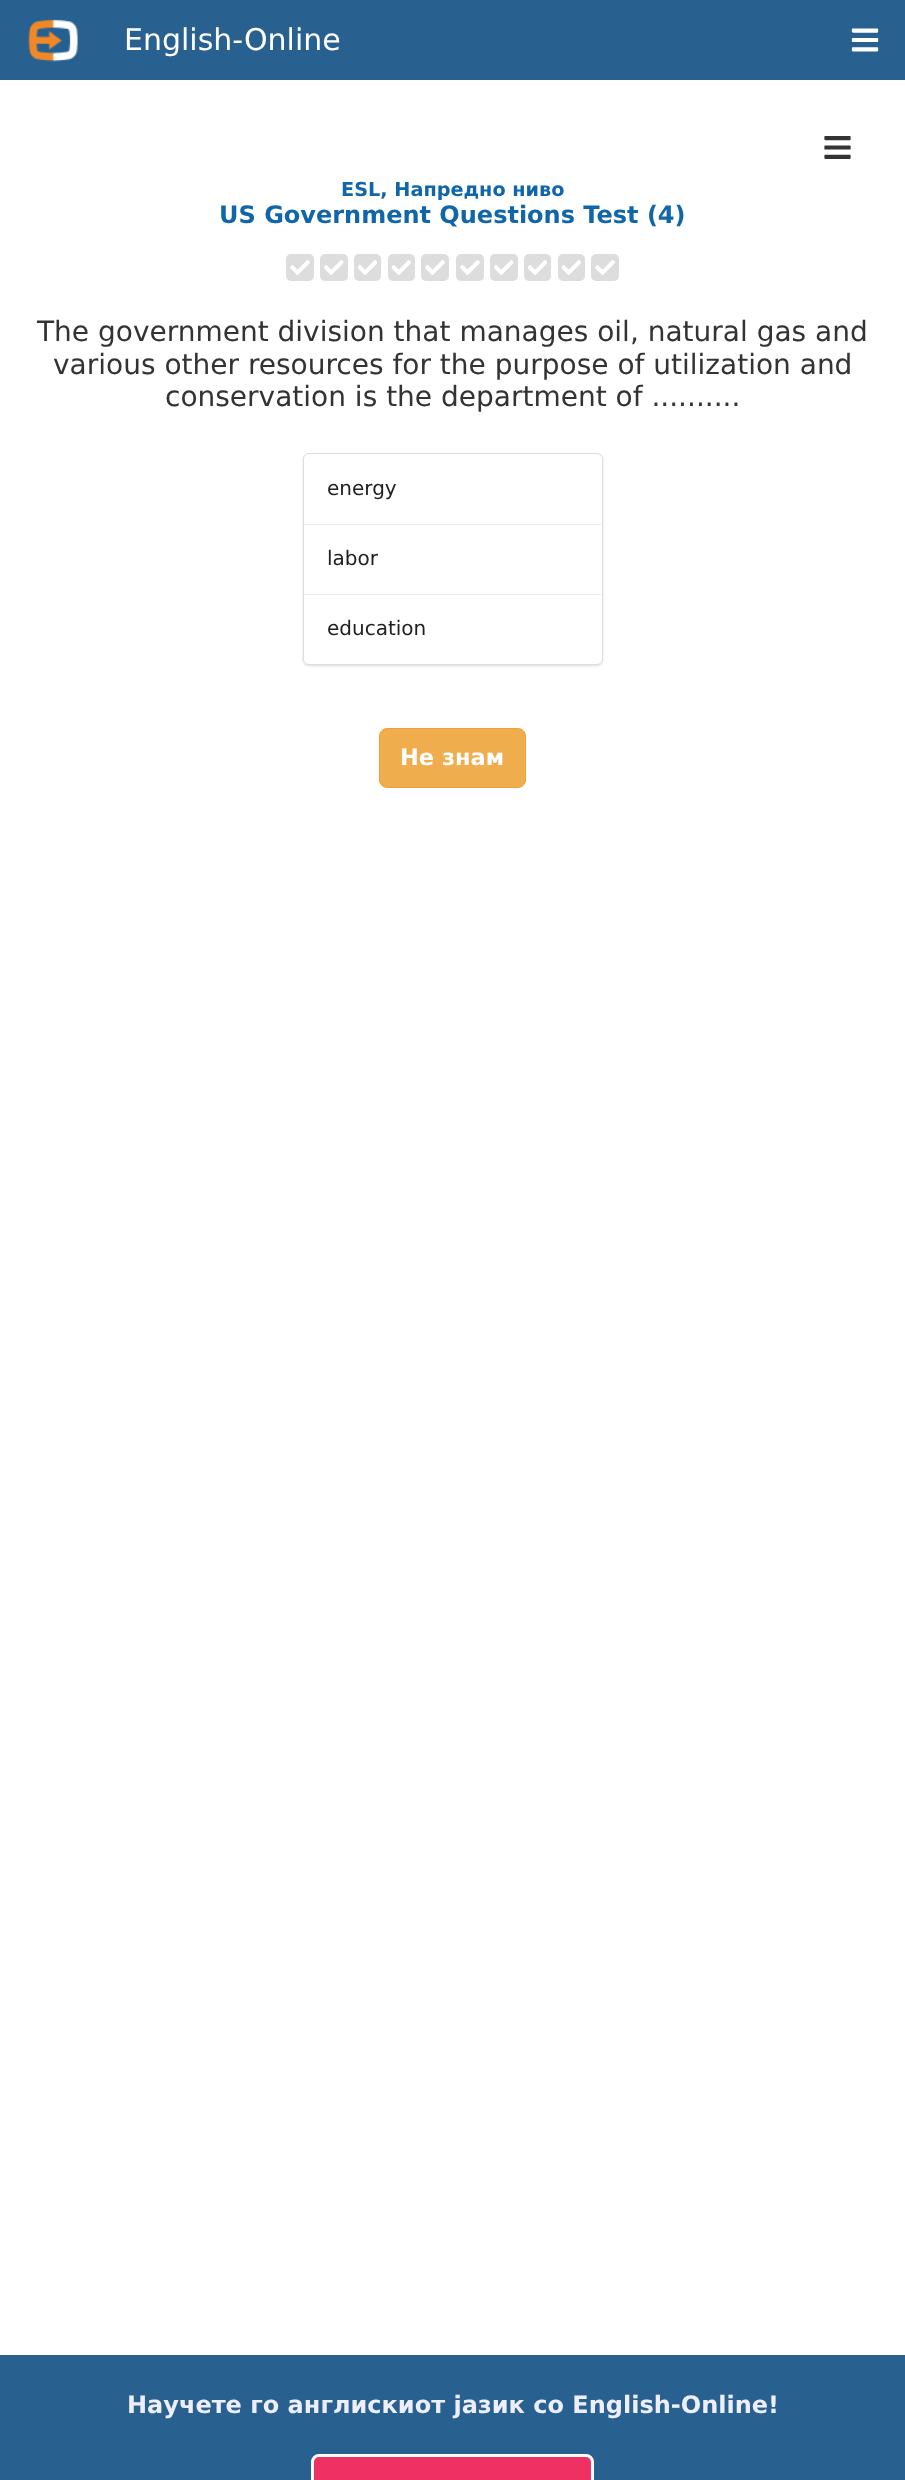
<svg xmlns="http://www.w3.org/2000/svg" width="905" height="2480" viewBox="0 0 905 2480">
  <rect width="100%" height="100%" fill="#fff"/>
  <path d="M0 0h905v80H0z" fill="#286090"/>
  <image x="28" y="19" width="50" height="43" href="img/1.png"/>
  <image x="851" y="28" width="28" height="24" href="img/2.png"/>
  <image x="824" y="136" width="27" height="23" href="img/3.png"/>
  <rect x="286" y="254" width="28" height="27" rx="5" fill="#ddd"/>
  <image x="290" y="260" width="20" height="15" href="img/4.png"/>
  <rect x="320" y="254" width="28" height="27" rx="5" fill="#ddd"/>
  <image x="324" y="260" width="20" height="15" href="img/5.png"/>
  <rect x="354" y="254" width="27" height="27" rx="5" fill="#ddd"/>
  <image x="358" y="260" width="19" height="15" href="img/6.png"/>
  <rect x="388" y="254" width="27" height="27" rx="5" fill="#ddd"/>
  <image x="391" y="260" width="20" height="15" href="img/7.png"/>
  <rect x="421" y="254" width="28" height="27" rx="5" fill="#ddd"/>
  <image x="425" y="260" width="20" height="15" href="img/8.png"/>
  <rect x="456" y="254" width="28" height="27" rx="5" fill="#ddd"/>
  <image x="460" y="260" width="20" height="15" href="img/8.png"/>
  <rect x="490" y="254" width="28" height="27" rx="5" fill="#ddd"/>
  <image x="494" y="260" width="20" height="15" href="img/9.png"/>
  <rect x="524" y="254" width="27" height="27" rx="5" fill="#ddd"/>
  <image x="528" y="260" width="19" height="15" href="img/6.png"/>
  <rect x="558" y="254" width="27" height="27" rx="5" fill="#ddd"/>
  <image x="561" y="260" width="20" height="15" href="img/7.png"/>
  <rect x="591" y="254" width="28" height="27" rx="5" fill="#ddd"/>
  <image x="595" y="260" width="20" height="15" href="img/8.png"/>
  <rect x="303" y="454" width="300" height="212" rx="6" fill="#22242626" filter="blur(1px)"/>
  <rect x="303" y="453" width="300" height="212" rx="6" fill="#fff"/>
  <rect x="303.5" y="453.5" width="299" height="211" rx="5.5" fill="none" stroke="#22242626"/>
  <path d="M304 524h297v1H304z" fill="#e9e9e9"/>
  <path d="M304 594h297v1H304z" fill="#e9e9e9"/>
  <rect x="379.5" y="728.5" width="146" height="59" rx="7.5" fill="#f0ad4e" stroke="#eea236"/>
  <path d="M0 2355h905v125H0z" fill="#286090"/>
  <rect x="312.5" y="2455.5" width="280" height="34" rx="6.5" fill="#ee3162" stroke="#fff" stroke-width="3"/>
  <text x="124" y="50" font-family="DejaVu Sans" font-size="30" fill="#fff">English-Online</text>
  <text x="341" y="196" font-family="DejaVu Sans" font-size="19.25" font-weight="bold" fill="#16a">ESL, Напредно ниво</text>
  <text x="219" y="223" font-family="DejaVu Sans" font-size="24" font-weight="bold" fill="#16a">US Government Questions Test (4)</text>
  <g font-family="DejaVu Sans" font-size="28" fill="#333">
    <text x="37" y="341">The government division that manages oil, natural gas and</text>
    <text x="53" y="374">various other resources for the purpose of utilization and</text>
    <text x="165" y="406">conservation is the department of ..........</text>
  </g>
  <g font-family="DejaVu Sans" font-size="20" fill="#212121">
    <text x="327" y="495">energy</text>
    <text x="327" y="565">labor</text>
    <text x="327" y="635">education</text>
  </g>
  <text x="400" y="765" font-family="DejaVu Sans" font-size="22.5" font-weight="bold" fill="#fff">Не знам</text>
  <text x="127" y="2413" font-family="DejaVu Sans" font-size="24" font-weight="bold" fill="#eef">Научете го англискиот јазик со English-Online!</text>
</svg>
